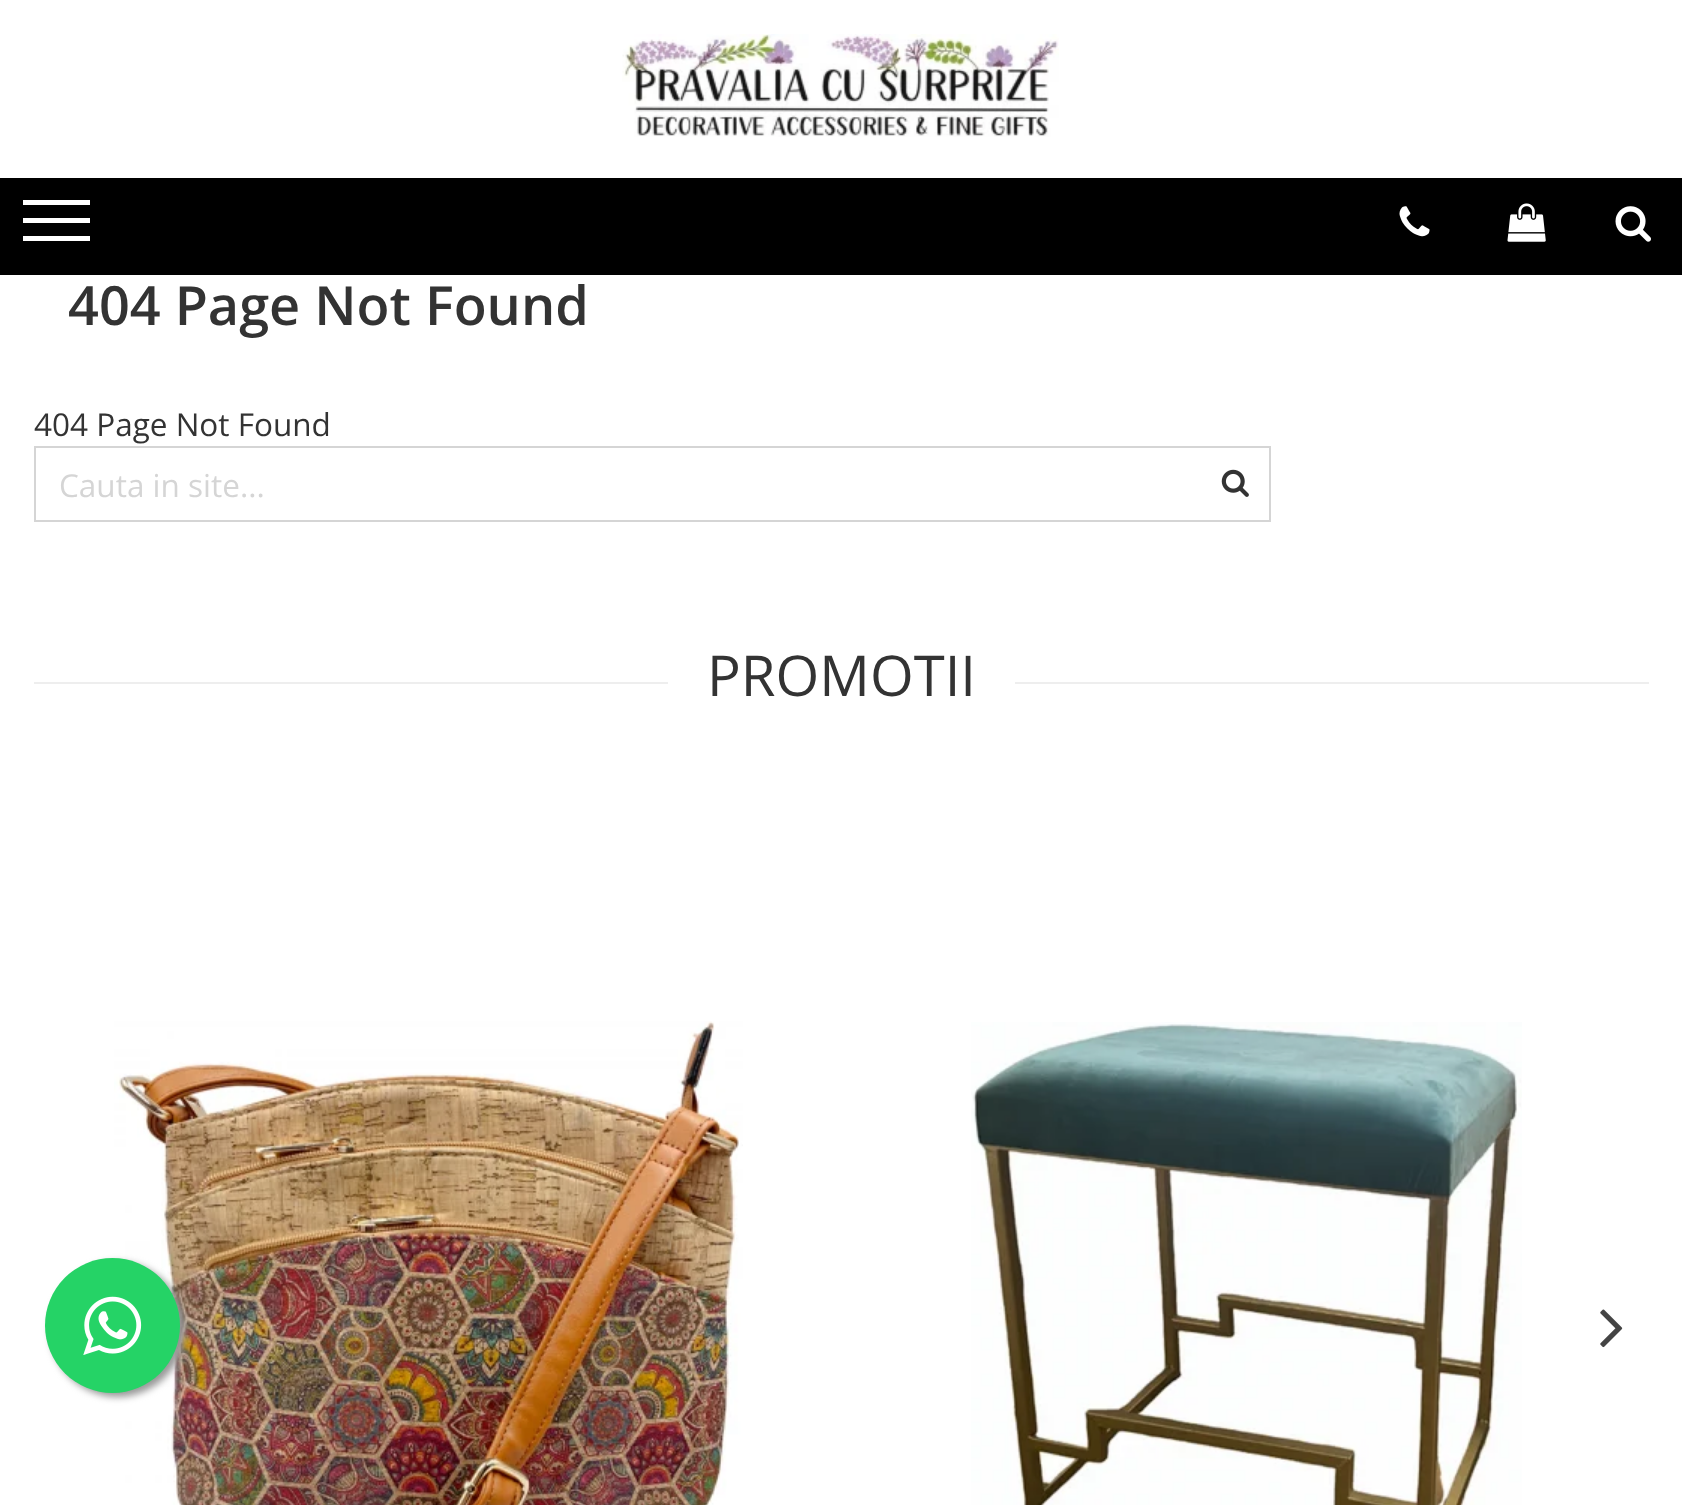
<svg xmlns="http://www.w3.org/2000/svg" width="1682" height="1505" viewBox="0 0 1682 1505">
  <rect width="100%" height="100%" fill="#fff"/>
  <image x="622" y="34" width="437" height="103" href="img/1.png"/>
  <path d="M0 178h1682v97H0z" fill="#000"/>
  <path d="M23 218h67v5H23z" fill="#fff"/>
  <path d="M23 200h67v5H23z" fill="#fff"/>
  <path d="M23 236h67v5H23z" fill="#fff"/>
  <image x="1399" y="206" width="31" height="31" href="img/2.png"/>
  <image x="1507" y="203" width="39" height="39" href="img/3.png"/>
  <image x="1615" y="206" width="36" height="36" href="img/4.png"/>
  <path d="M35 447h1235v74H35z" fill="none" stroke="#d5d5d5" stroke-width="2"/>
  <image x="1221" y="469" width="28" height="28" href="img/5.png"/>
  <path d="M34 682h1615v2H34z" fill="#eee"/>
  <path d="M668 682h347v2H668z" fill="#fff"/>
  <image x="114" y="1021" width="629" height="484" href="img/6.png"/>
  <image x="971" y="1022" width="551" height="483" href="img/7.png"/>
  <image x="1600" y="1309" width="23" height="39" href="img/8.png"/>
  <rect x="50" y="1262" width="135" height="135" rx="67.5" fill="#999" filter="blur(3.5px)"/>
  <circle cx="112.5" cy="1325.5" r="67.5" fill="#25d366"/>
  <image x="83" y="1296" width="59" height="59" href="img/9.png"/>
  <text x="68" y="325" font-family="Open Sans" font-size="54" font-weight="600" fill="#333">404 Page Not Found</text>
  <text x="34" y="436" font-family="Open Sans" font-size="31.5" fill="#333">404 Page Not Found</text>
  <text x="59" y="497" font-family="Open Sans" font-size="31.5" fill="#d5d5d5">Cauta in site...</text>
  <text x="707" y="696" font-family="Open Sans" font-size="56.25" fill="#333">PROMOTII</text>
</svg>
